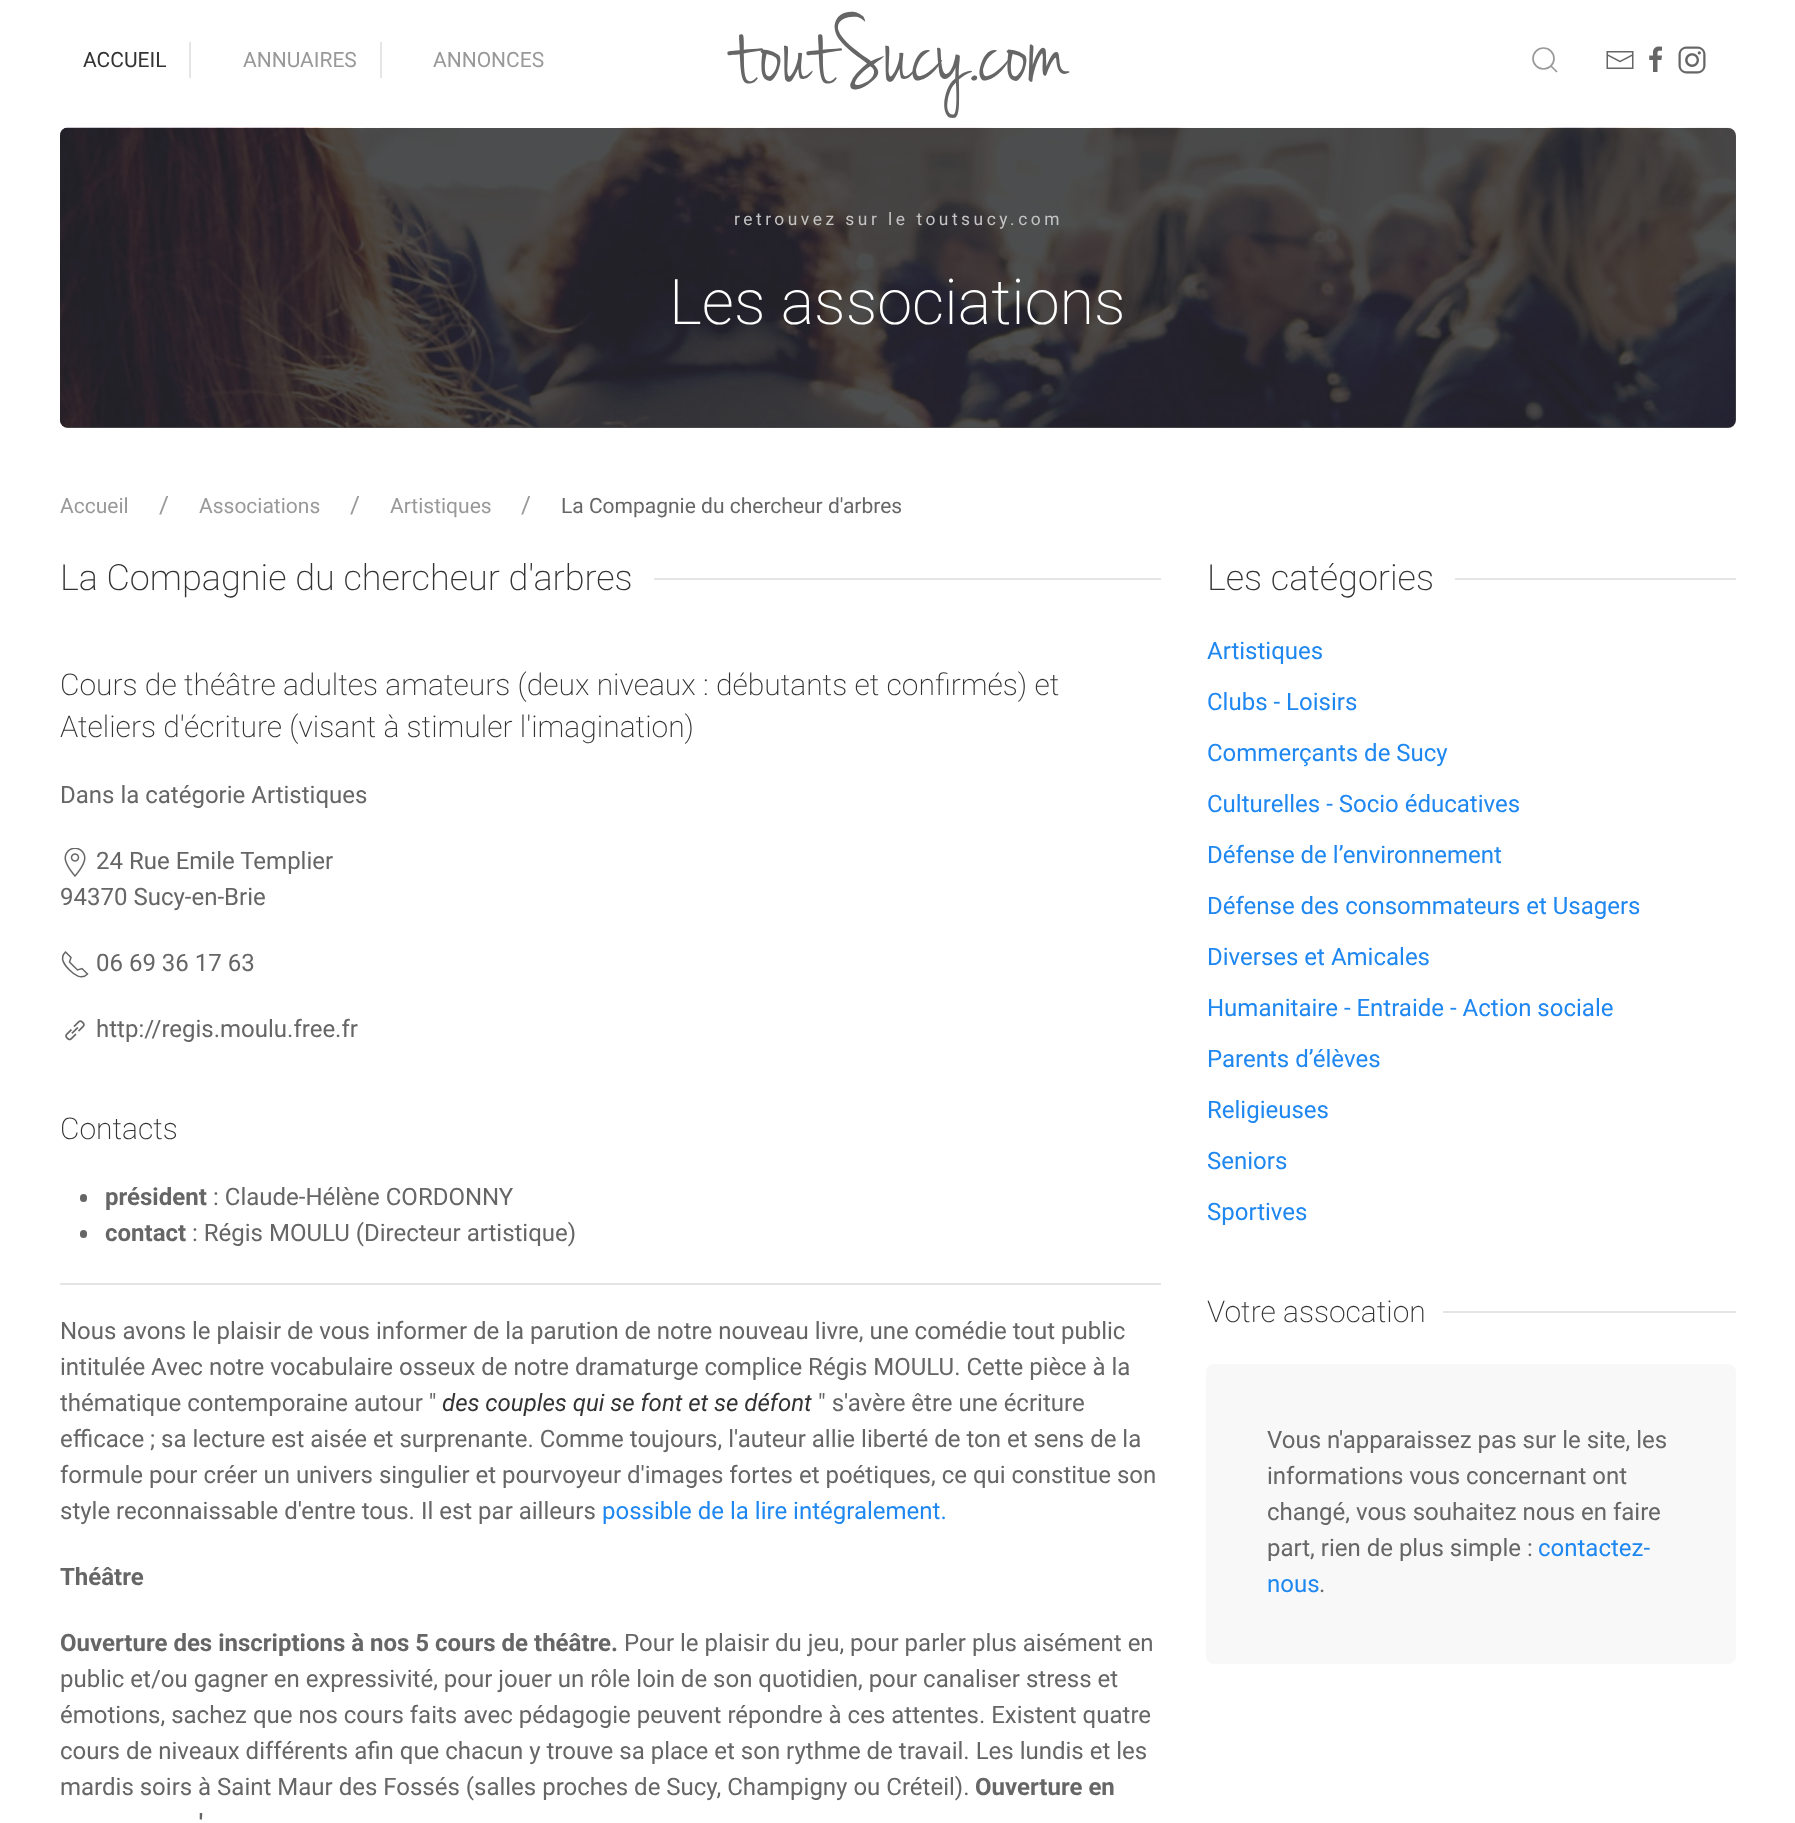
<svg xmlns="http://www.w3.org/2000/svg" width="1795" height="1823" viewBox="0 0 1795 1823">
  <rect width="100%" height="100%" fill="#fff"/>
  <path d="M189 42h2v36H189z" fill="#e5e5e5"/>
  <path d="M380 42h2v36H380z" fill="#e5e5e5"/>
  <circle cx="1543.5" cy="58.5" r="10.5" fill="none" stroke="#999" stroke-width="1.7"/>
  <path d="M1551 66L1557 72Z" fill="none" stroke="#999" stroke-width="1.7"/>
  <image x="1606" y="51" width="28" height="18" href="img/1.png"/>
  <image x="1649" y="46" width="13" height="26" href="img/2.png"/>
  <image x="1678" y="46" width="28" height="28" href="img/3.png"/>
  <image x="60" y="127" width="1676" height="301" href="img/4.png"/>
  <rect x="60" y="128" width="1676" height="300" rx="8" fill="#222222cc"/>
  <path d="M654 578h507v2H654z" fill="#e5e5e5"/>
  <image x="64" y="848" width="22" height="29" href="img/5.png"/>
  <path d="M69.5 970C74 974.5 81.5 980.5 87.5 974L82 968.5L77.5 970L69.5 962L71 957.5L65.5 952C59 958 64.5 965 69.5 970" fill="none" stroke="#666" stroke-width="1.5"/>
  <image x="65" y="1020" width="20" height="21" href="img/6.png"/>
  <rect x="80" y="1194" width="7" height="8" rx="3.5" fill="#666"/>
  <rect x="80" y="1230" width="7" height="8" rx="3.5" fill="#666"/>
  <path d="M60 1283h1101v2H60z" fill="#e5e5e5"/>
  <path d="M1455 578h281v2H1455z" fill="#e5e5e5"/>
  <path d="M1443 1311h293v2H1443z" fill="#e5e5e5"/>
  <rect x="1206" y="1364" width="530" height="300" rx="8" fill="#f8f8f8"/>
  <text x="83" y="67" font-family="Roboto" font-size="21" fill="#333">ACCUEIL</text>
  <g font-family="Roboto" font-size="21" fill="#999">
    <text x="243" y="67">ANNUAIRES</text>
    <text x="433" y="67">ANNONCES</text>
  </g>
  <text x="727" y="81" font-family="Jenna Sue" font-size="105" fill="#666">toutSucy.com</text>
  <text x="734" y="225" font-family="Roboto" font-size="17.4" letter-spacing="3.5" fill="#c5c4c4">retrouvez sur le toutsucy.com</text>
  <text x="669" y="324" font-family="Roboto" font-size="63" font-weight="200" fill="#fff">Les associations</text>
  <text x="60" y="513" font-family="Roboto" font-size="21" fill="#999">Accueil</text>
  <text x="159" y="513" font-family="Roboto" font-size="24" fill="#999">/</text>
  <text x="199" y="513" font-family="Roboto" font-size="21" fill="#999">Associations</text>
  <text x="350" y="513" font-family="Roboto" font-size="24" fill="#999">/</text>
  <text x="390" y="513" font-family="Roboto" font-size="21" fill="#999">Artistiques</text>
  <text x="521" y="513" font-family="Roboto" font-size="24" fill="#999">/</text>
  <text x="561" y="513" font-family="Roboto" font-size="21" fill="#666">La Compagnie du chercheur d'arbres</text>
  <text x="60" y="590" font-family="Roboto" font-size="36" font-weight="200" fill="#333">La Compagnie du chercheur d'arbres</text>
  <g font-family="Roboto" font-size="30" font-weight="200" fill="#333">
    <text x="60" y="695">Cours de théâtre adultes amateurs (deux niveaux : débutants et confirmés) et</text>
    <text x="60" y="737">Ateliers d'écriture (visant à stimuler l'imagination)</text>
  </g>
  <g font-family="Roboto" font-size="24" fill="#666">
    <text x="60" y="803">Dans la catégorie Artistiques</text>
    <text x="96" y="869">24 Rue Emile Templier</text>
    <text x="60" y="905">94370 Sucy-en-Brie</text>
    <text x="96" y="971">06 69 36 17 63</text>
    <text x="96" y="1037">http://regis.moulu.free.fr</text>
  </g>
  <text x="60" y="1139" font-family="Roboto" font-size="30" font-weight="200" fill="#333">Contacts</text>
  <text x="105" y="1205" font-family="Roboto" font-size="24" font-weight="bold" fill="#666">président</text>
  <text x="213" y="1205" font-family="Roboto" font-size="24" fill="#666">: Claude-Hélène CORDONNY</text>
  <text x="105" y="1241" font-family="Roboto" font-size="24" font-weight="bold" fill="#666">contact</text>
  <g font-family="Roboto" font-size="24" fill="#666">
    <text x="192" y="1241">: Régis MOULU (Directeur artistique)</text>
    <text x="60" y="1339">Nous avons le plaisir de vous informer de la parution de notre nouveau livre, une comédie tout public</text>
    <text x="60" y="1375">intitulée Avec notre vocabulaire osseux de notre dramaturge complice Régis MOULU. Cette pièce à la</text>
    <text x="60" y="1411">thématique contemporaine autour "</text>
  </g>
  <text x="442" y="1411" font-family="Roboto" font-size="24" font-style="italic" fill="#333">des couples qui se font et se défont</text>
  <g font-family="Roboto" font-size="24" fill="#666">
    <text x="818" y="1411">" s'avère être une écriture</text>
    <text x="60" y="1447">efficace ; sa lecture est aisée et surprenante. Comme toujours, l'auteur allie liberté de ton et sens de la</text>
    <text x="60" y="1483">formule pour créer un univers singulier et pourvoyeur d'images fortes et poétiques, ce qui constitue son</text>
    <text x="60" y="1519">style reconnaissable d'entre tous. Il est par ailleurs</text>
  </g>
  <text x="602" y="1519" font-family="Roboto" font-size="24" fill="#1e87f0">possible de la lire intégralement.</text>
  <g font-family="Roboto" font-size="24" font-weight="bold" fill="#666">
    <text x="60" y="1585">Théâtre</text>
    <text x="60" y="1651">Ouverture des inscriptions à nos 5 cours de théâtre.</text>
  </g>
  <g font-family="Roboto" font-size="24" fill="#666">
    <text x="624" y="1651">Pour le plaisir du jeu, pour parler plus aisément en</text>
    <text x="60" y="1687">public et/ou gagner en expressivité, pour jouer un rôle loin de son quotidien, pour canaliser stress et</text>
    <text x="60" y="1723">émotions, sachez que nos cours faits avec pédagogie peuvent répondre à ces attentes. Existent quatre</text>
    <text x="60" y="1759">cours de niveaux différents afin que chacun y trouve sa place et son rythme de travail. Les lundis et les</text>
    <text x="60" y="1795">mardis soirs à Saint Maur des Fossés (salles proches de Sucy, Champigny ou Créteil).</text>
  </g>
  <g font-family="Roboto" font-size="24" font-weight="bold" fill="#666">
    <text x="975" y="1795">Ouverture en</text>
    <text x="199" y="1831">'</text>
  </g>
  <text x="1207" y="590" font-family="Roboto" font-size="36" font-weight="200" fill="#333">Les catégories</text>
  <g font-family="Roboto" font-size="24" fill="#1e87f0">
    <text x="1207" y="659">Artistiques</text>
    <text x="1207" y="710">Clubs - Loisirs</text>
    <text x="1207" y="761">Commerçants de Sucy</text>
    <text x="1207" y="812">Culturelles - Socio éducatives</text>
    <text x="1207" y="863">Défense de l’environnement</text>
    <text x="1207" y="914">Défense des consommateurs et Usagers</text>
    <text x="1207" y="965">Diverses et Amicales</text>
    <text x="1207" y="1016">Humanitaire - Entraide - Action sociale</text>
    <text x="1207" y="1067">Parents d’élèves</text>
    <text x="1207" y="1118">Religieuses</text>
    <text x="1207" y="1169">Seniors</text>
    <text x="1207" y="1220">Sportives</text>
  </g>
  <text x="1207" y="1322" font-family="Roboto" font-size="30" font-weight="200" fill="#333">Votre assocation</text>
  <g font-family="Roboto" font-size="24" fill="#666">
    <text x="1267" y="1448">Vous n'apparaissez pas sur le site, les</text>
    <text x="1267" y="1484">informations vous concernant ont</text>
    <text x="1267" y="1520">changé, vous souhaitez nous en faire</text>
    <text x="1267" y="1556">part, rien de plus simple :</text>
  </g>
  <g font-family="Roboto" font-size="24" fill="#1e87f0">
    <text x="1538" y="1556">contactez-</text>
    <text x="1267" y="1592">nous</text>
  </g>
  <text x="1319" y="1592" font-family="Roboto" font-size="24" fill="#666">.</text>
</svg>
